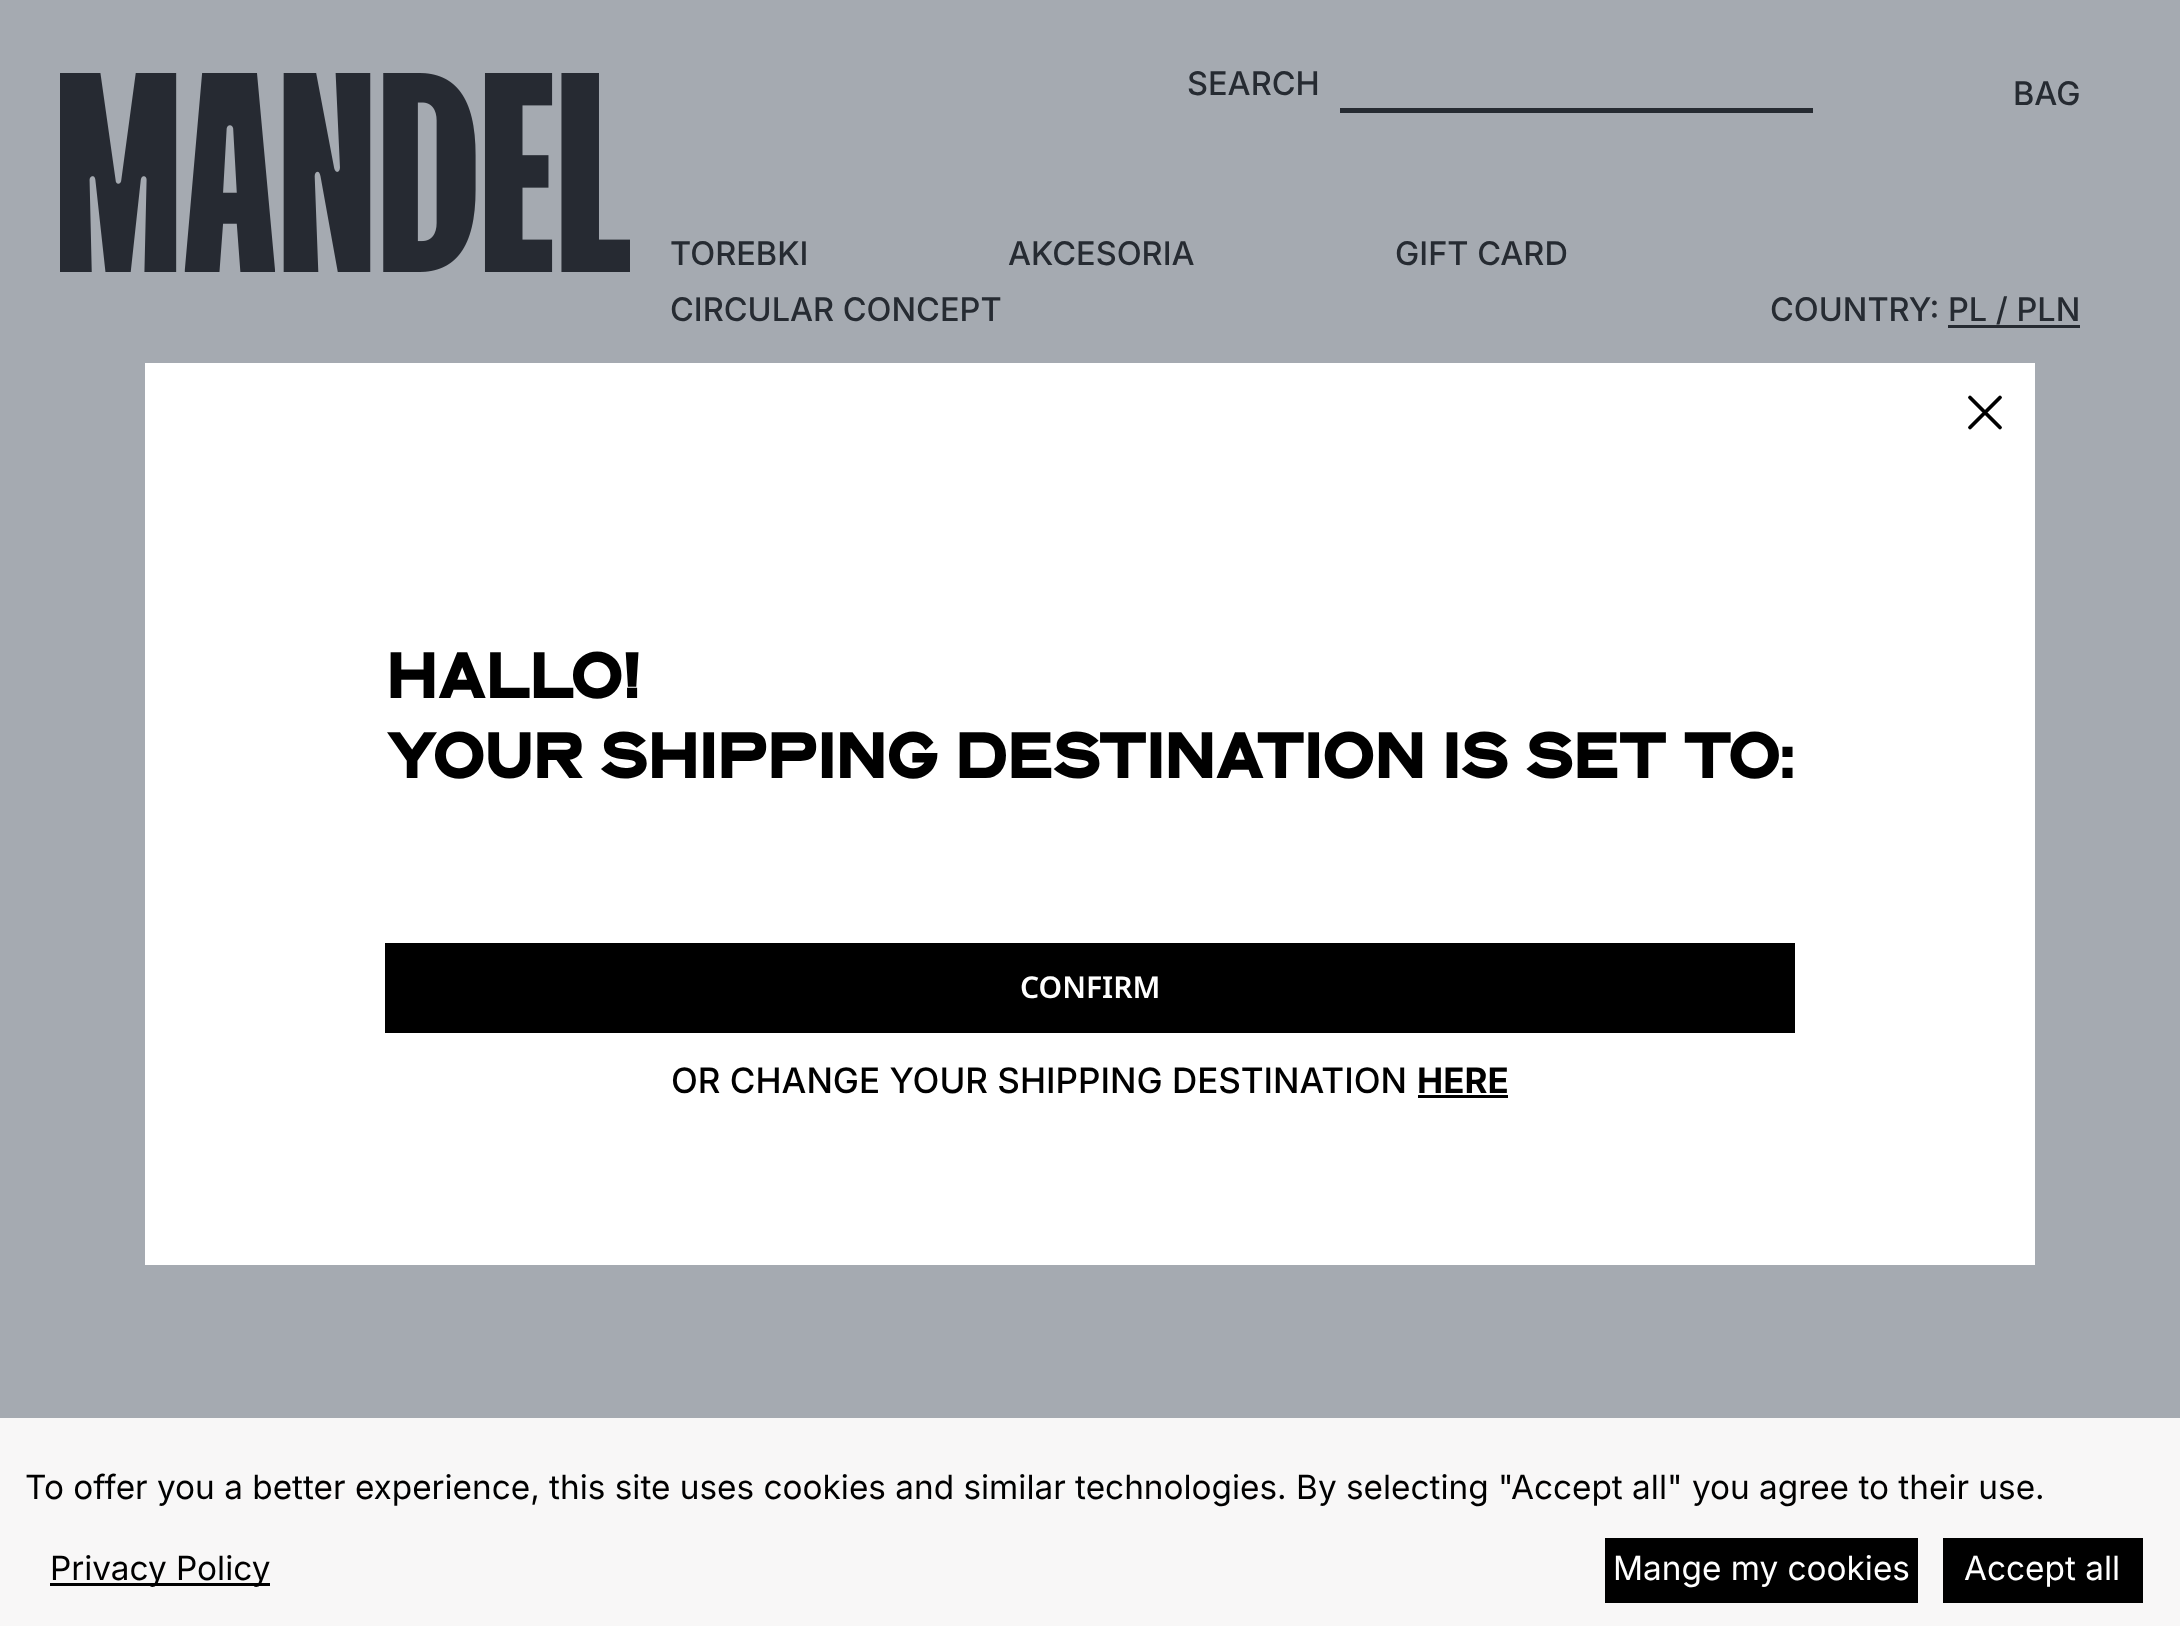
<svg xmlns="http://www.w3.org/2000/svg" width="2180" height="1626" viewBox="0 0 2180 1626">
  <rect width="100%" height="100%" fill="#a5aab1"/>
  <image x="60" y="73" width="570" height="199" href="img/1.png"/>
  <path d="M1340 108h473v5H1340z" fill="#262b32"/>
  <path d="M1948 325h132v3H1948z" fill="#262b32"/>
  <path d="M0 1418h2180v208H0z" fill="#f8f7f7"/>
  <path d="M50 1583h220v3H50z" fill="#000"/>
  <path d="M1605 1538h313v65H1605z" fill="#000"/>
  <path d="M1943 1538h200v65H1943z" fill="#000"/>
  <path d="M145 363h1890v902H145z" fill="#fff"/>
  <path d="M1970 427.5L2000 397.5M1970 397.5L2000 427.5" fill="none" stroke="#000" stroke-width="3.8" stroke-linecap="round" stroke-linejoin="round"/>
  <path d="M385 943h1410v90H385z" fill="#000"/>
  <path d="M1418 1095h90v3H1418z" fill="#000"/>
  <g font-family="Inter" font-size="32.5" font-weight="500" fill="#262b32">
    <text x="1187" y="95">SEARCH</text>
    <text x="2013" y="105">BAG</text>
    <text x="670" y="265">TOREBKI</text>
    <text x="1008" y="265">AKCESORIA</text>
    <text x="1395" y="265">GIFT CARD</text>
    <text x="670" y="321">CIRCULAR CONCEPT</text>
    <text x="1770" y="321">COUNTRY: PL / PLN</text>
  </g>
  <g font-family="Inter" font-size="33.33" fill="#000">
    <text x="25" y="1499">To offer you a better experience, this site uses cookies and similar technologies. By selecting "Accept all" you agree to their use.</text>
    <text x="50" y="1580">Privacy Policy</text>
  </g>
  <g font-family="Inter" font-size="33.33" fill="#fff">
    <text x="1613" y="1580">Mange my cookies</text>
    <text x="1964" y="1580">Accept all</text>
  </g>
  <g font-family="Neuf" font-size="60" font-weight="bold" fill="#000">
    <text x="386" y="698">HALLO!</text>
    <text x="386" y="778">YOUR SHIPPING DESTINATION IS SET TO:</text>
  </g>
  <text x="1020" y="998" font-family="Noto Sans" font-size="30" font-weight="600" fill="#fff">CONFIRM</text>
  <text x="671" y="1093" font-family="Inter" font-size="35" font-weight="500" fill="#000">OR CHANGE YOUR SHIPPING DESTINATION</text>
  <text x="1417" y="1093" font-family="Inter" font-size="35" font-weight="bold" fill="#000">HERE</text>
</svg>
